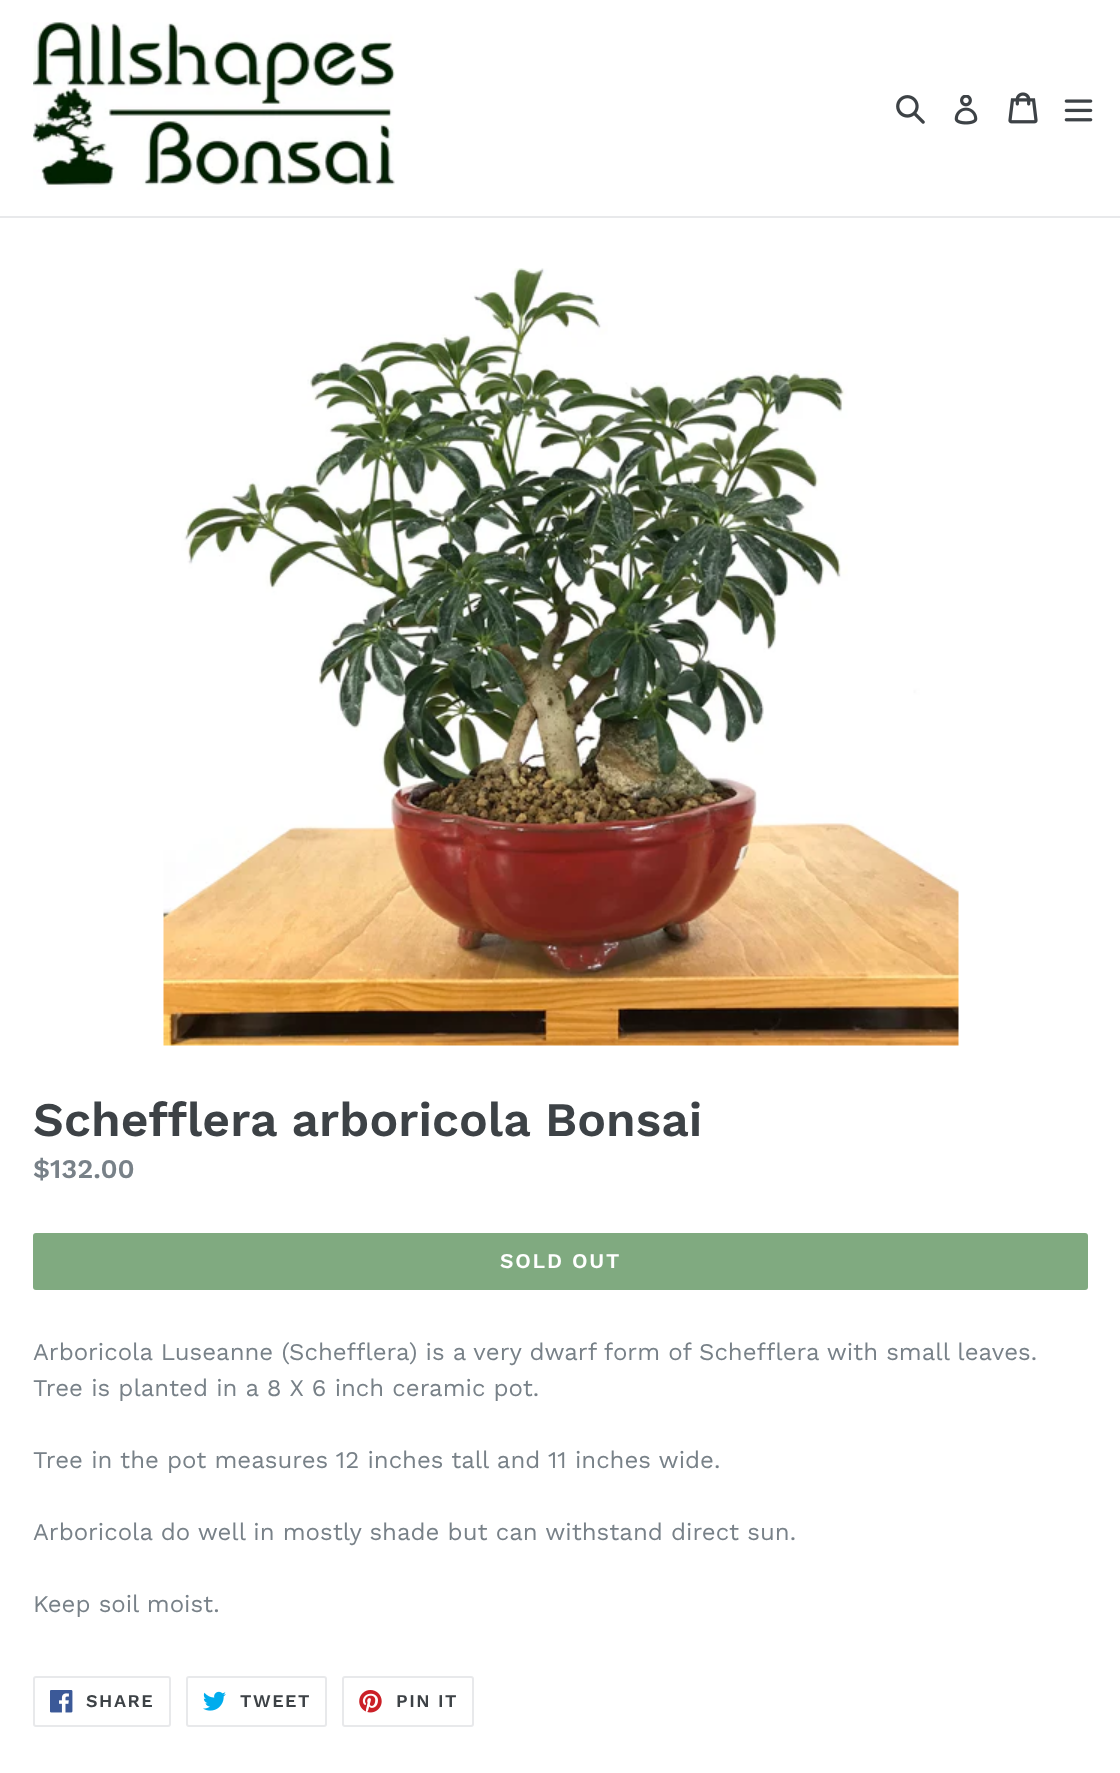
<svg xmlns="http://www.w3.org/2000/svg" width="1120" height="1773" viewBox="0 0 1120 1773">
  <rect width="100%" height="100%" fill="#fff"/>
  <path d="M0 216h1120v2H0z" fill="#e8e9eb"/>
  <image x="33" y="22" width="362" height="168" href="img/1.png"/>
  <image x="896" y="95" width="29" height="29" href="img/2.png"/>
  <image x="954" y="95" width="24" height="30" href="img/3.png"/>
  <image x="1008" y="92" width="30" height="32" href="img/4.png"/>
  <image x="1064" y="99" width="29" height="23" href="img/5.png"/>
  <image x="163" y="268" width="796" height="778" href="img/6.png"/>
  <rect x="33" y="1233" width="1055" height="57" rx="3" fill="#80aa80"/>
  <rect x="34" y="1677" width="136" height="49" rx="2" fill="none" stroke="#e8e9eb" stroke-width="2"/>
  <image x="50" y="1690" width="23" height="23" href="img/7.png"/>
  <rect x="187" y="1677" width="139" height="49" rx="2" fill="none" stroke="#e8e9eb" stroke-width="2"/>
  <image x="203" y="1691" width="23" height="20" href="img/8.png"/>
  <rect x="343" y="1677" width="130" height="49" rx="2" fill="none" stroke="#e8e9eb" stroke-width="2"/>
  <image x="359" y="1690" width="23" height="23" href="img/9.png"/>
  <text x="33" y="1136" font-family="Work Sans" font-size="48" font-weight="600" fill="#3d4246">Schefflera arboricola Bonsai</text>
  <text x="33" y="1178" font-family="Work Sans" font-size="27" font-weight="600" fill="#788188">$132.00</text>
  <text x="500" y="1268" font-family="Work Sans" font-size="21" font-weight="600" letter-spacing="1.75" fill="#fff">SOLD OUT</text>
  <g font-family="Work Sans" font-size="24" fill="#788188">
    <text x="33" y="1360">Arboricola Luseanne (Schefflera) is a very dwarf form of Schefflera with small leaves.</text>
    <text x="33" y="1396">Tree is planted in a 8 X 6 inch ceramic pot.</text>
    <text x="33" y="1468">Tree in the pot measures 12 inches tall and 11 inches wide.</text>
    <text x="33" y="1540">Arboricola do well in mostly shade but can withstand direct sun.</text>
    <text x="33" y="1612">Keep soil moist.</text>
  </g>
  <g font-family="Work Sans" font-size="18" font-weight="600" letter-spacing="1.5" fill="#3d4246">
    <text x="86" y="1707">SHARE</text>
    <text x="240" y="1707">TWEET</text>
    <text x="396" y="1707">PIN IT</text>
  </g>
</svg>
